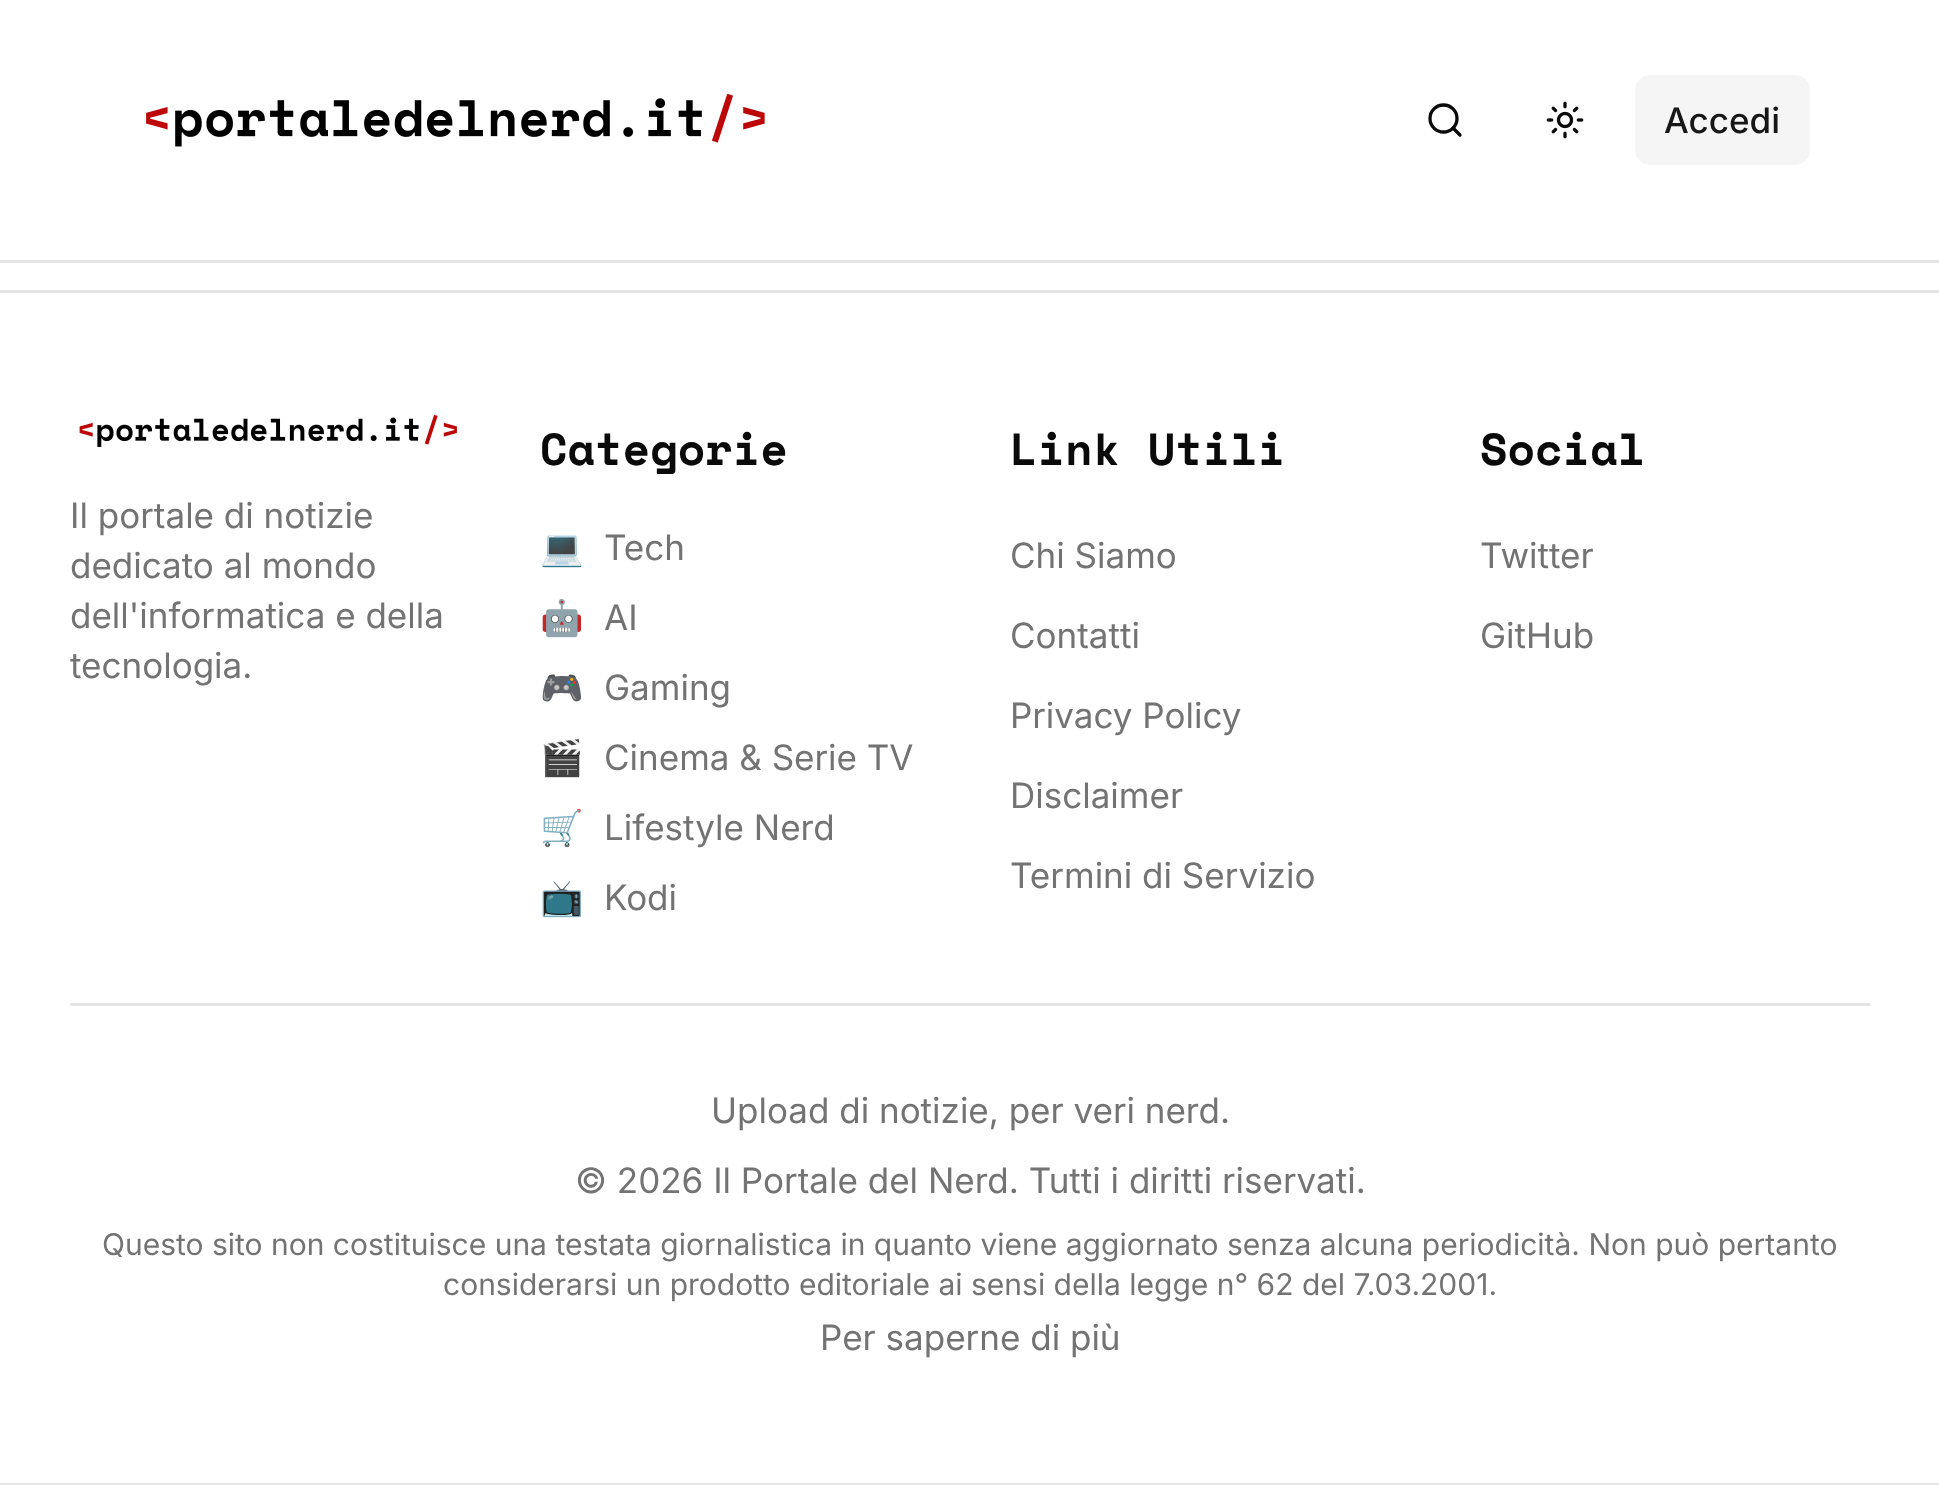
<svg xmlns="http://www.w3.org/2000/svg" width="1939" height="1485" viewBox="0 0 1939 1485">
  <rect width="100%" height="100%" fill="#fff"/>
  <path d="M0 260h1939v3H0z" fill="#e5e5e5"/>
  <image x="146" y="93" width="619" height="54" href="img/1.png"/>
  <circle cx="1443.5" cy="118.5" r="13.5" fill="none" stroke="#0a0a0a" stroke-width="3.3"/>
  <path d="M1460 135L1453 128" fill="none" stroke="#0a0a0a" stroke-width="3.3" stroke-linecap="round" stroke-linejoin="round"/>
  <image x="1546" y="101" width="38" height="38" href="img/2.png"/>
  <rect x="1635" y="75" width="175" height="90" rx="15" fill="#f5f5f5"/>
  <path d="M0 290h1939v3H0z" fill="#e5e5e5"/>
  <image x="79" y="414" width="378" height="33" href="img/3.png"/>
  <path d="M70 1003h1800v3H70z" fill="#e5e5e5"/>
  <path d="M0 1483h1939v2H0z" fill="#e5e5e5"/>
  <text x="1664" y="133" font-family="Inter" font-size="35" font-weight="500" fill="#171717">Accedi</text>
  <g font-family="Inter" font-size="35" fill="#737373">
    <text x="70" y="528">Il portale di notizie</text>
    <text x="70" y="578">dedicato al mondo</text>
    <text x="70" y="628">dell'informatica e della</text>
    <text x="70" y="678">tecnologia.</text>
  </g>
  <text x="540" y="465" font-family="Space Mono" font-size="45" font-weight="bold" fill="#0a0a0a">Categorie</text>
  <text x="540" y="560" font-family="Noto Color Emoji" font-size="35" fill="#737373">💻</text>
  <text x="604" y="560" font-family="Inter" font-size="35" fill="#737373">Tech</text>
  <text x="540" y="630" font-family="Noto Color Emoji" font-size="35" fill="#737373">🤖</text>
  <text x="604" y="630" font-family="Inter" font-size="35" fill="#737373">AI</text>
  <text x="540" y="700" font-family="Noto Color Emoji" font-size="35" fill="#737373">🎮</text>
  <text x="604" y="700" font-family="Inter" font-size="35" fill="#737373">Gaming</text>
  <text x="540" y="770" font-family="Noto Color Emoji" font-size="35" fill="#737373">🎬</text>
  <text x="604" y="770" font-family="Inter" font-size="35" fill="#737373">Cinema &amp; Serie TV</text>
  <text x="540" y="840" font-family="Noto Color Emoji" font-size="35" fill="#737373">🛒</text>
  <text x="604" y="840" font-family="Inter" font-size="35" fill="#737373">Lifestyle Nerd</text>
  <text x="540" y="910" font-family="Noto Color Emoji" font-size="35" fill="#737373">📺</text>
  <text x="604" y="910" font-family="Inter" font-size="35" fill="#737373">Kodi</text>
  <text x="1010" y="465" font-family="Space Mono" font-size="45" font-weight="bold" fill="#0a0a0a">Link Utili</text>
  <g font-family="Inter" font-size="35" fill="#737373">
    <text x="1010" y="568">Chi Siamo</text>
    <text x="1010" y="648">Contatti</text>
    <text x="1010" y="728">Privacy Policy</text>
    <text x="1010" y="808">Disclaimer</text>
    <text x="1010" y="888">Termini di Servizio</text>
  </g>
  <text x="1480" y="465" font-family="Space Mono" font-size="45" font-weight="bold" fill="#0a0a0a">Social</text>
  <g font-family="Inter" font-size="35" fill="#737373">
    <text x="1480" y="568">Twitter</text>
    <text x="1480" y="648">GitHub</text>
    <text x="711" y="1123">Upload di notizie, per veri nerd.</text>
    <text x="575" y="1193">© 2026 Il Portale del Nerd. Tutti i diritti riservati.</text>
  </g>
  <g font-family="Inter" font-size="30" fill="#737373">
    <text x="102" y="1255">Questo sito non costituisce una testata giornalistica in quanto viene aggiornato senza alcuna periodicità. Non può pertanto</text>
    <text x="443" y="1295">considerarsi un prodotto editoriale ai sensi della legge n° 62 del 7.03.2001.</text>
  </g>
  <text x="820" y="1350" font-family="Inter" font-size="35" fill="#737373">Per saperne di più</text>
</svg>
